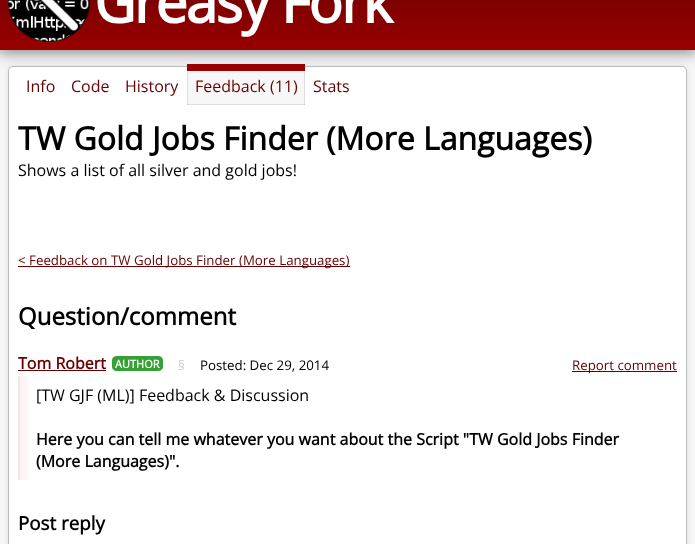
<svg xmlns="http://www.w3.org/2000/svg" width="695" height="544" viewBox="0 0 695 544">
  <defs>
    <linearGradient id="g1" gradientUnits="userSpaceOnUse" x1="348" y1="-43" x2="348" y2="50"><stop offset="0" stop-color="#670000"/><stop offset="1" stop-color="#900"/></linearGradient>
    <linearGradient id="g2" gradientUnits="userSpaceOnUse" x1="20" y1="428" x2="677" y2="428"><stop offset="0" stop-color="#fcf1f1"/><stop offset="0.02" stop-color="#fff"/></linearGradient>
  </defs>
  <rect width="100%" height="100%" fill="#f6f6f6"/>
  <path d="M-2 -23h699v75H-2z" fill="#00000080" filter="blur(7.5px)"/>
  <path d="M0 0h695v50H0z" fill="url(#g1)"/>
  <image x="8" y="0" width="82" height="42" href="img/1.png"/>
  <rect x="8" y="66" width="679" height="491" rx="5" fill="#ddd" filter="blur(2.5px)"/>
  <rect x="8.5" y="66.5" width="678" height="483" rx="4.5" fill="#fff" stroke="#bbb"/>
  <path d="M187 71h118v33H187z" fill="#00000008"/>
  <path d="M187 104h118v1H187z" fill="#dfdfdf"/>
  <path d="M304 71h1v34H304z" fill="#0000001a"/>
  <path d="M187 71h1v34H187z" fill="#0000001a"/>
  <path d="M187 64h118v7H187z" fill="#900"/>
  <path d="M18 266h332v1H18z" fill="#670000"/>
  <path d="M18 370h88v1H18z" fill="#670000"/>
  <path d="M117 356H158C161 356 163 358 163 360V367C163 369 161 371 158 371H117C114 371 112 369 112 367V360C112 358 114 356 117 356Z" fill="#35a135"/>
  <path d="M572 371h105v1H572z" fill="#670000"/>
  <path d="M20 376h11v104H20z" fill="url(#g2)"/>
  <path d="M18 376h2v104H18z" fill="#f2e5e5"/>
  <text x="94" y="23" font-family="Open Sans" font-size="57.5" font-weight="bold" letter-spacing="-2" fill="#fff">Greasy Fork</text>
  <g font-family="Open Sans" font-size="16" fill="#670000">
    <text x="26" y="92">Info</text>
    <text x="71" y="92">Code</text>
    <text x="125" y="92">History</text>
    <text x="195" y="92">Feedback (11)</text>
    <text x="313" y="92">Stats</text>
  </g>
  <text x="18" y="150" font-family="Open Sans" font-size="32" font-weight="bold" fill="#000">TW Gold Jobs Finder (More Languages)</text>
  <text x="18" y="176" font-family="Open Sans" font-size="16" fill="#000">Shows a list of all silver and gold jobs!</text>
  <text x="18" y="265" font-family="Open Sans" font-size="13.3" fill="#670000">&lt; Feedback on TW Gold Jobs Finder (More Languages)</text>
  <text x="18" y="325" font-family="Open Sans" font-size="24" font-weight="bold" fill="#000">Question/comment</text>
  <text x="18" y="369" font-family="Open Sans" font-size="16" font-weight="bold" fill="#670000">Tom Robert</text>
  <text x="115" y="368" font-family="Open Sans" font-size="11" font-weight="bold" fill="#fff">AUTHOR</text>
  <text x="178" y="370" font-family="Open Sans" font-size="13.3" fill="#ccc">§</text>
  <text x="200" y="370" font-family="Open Sans" font-size="13.3" fill="#000">Posted: Dec 29, 2014</text>
  <text x="572" y="370" font-family="Open Sans" font-size="13.3" fill="#670000">Report comment</text>
  <text x="36" y="401" font-family="Open Sans" font-size="16" fill="#000">[TW GJF (ML)] Feedback &amp; Discussion</text>
  <g font-family="Open Sans" font-size="16" font-weight="bold" fill="#000">
    <text x="36" y="445">Here you can tell me whatever you want about the Script "TW Gold Jobs Finder</text>
    <text x="36" y="467">(More Languages)".</text>
  </g>
  <text x="18" y="530" font-family="Open Sans" font-size="18.75" font-weight="bold" fill="#000">Post reply</text>
</svg>
